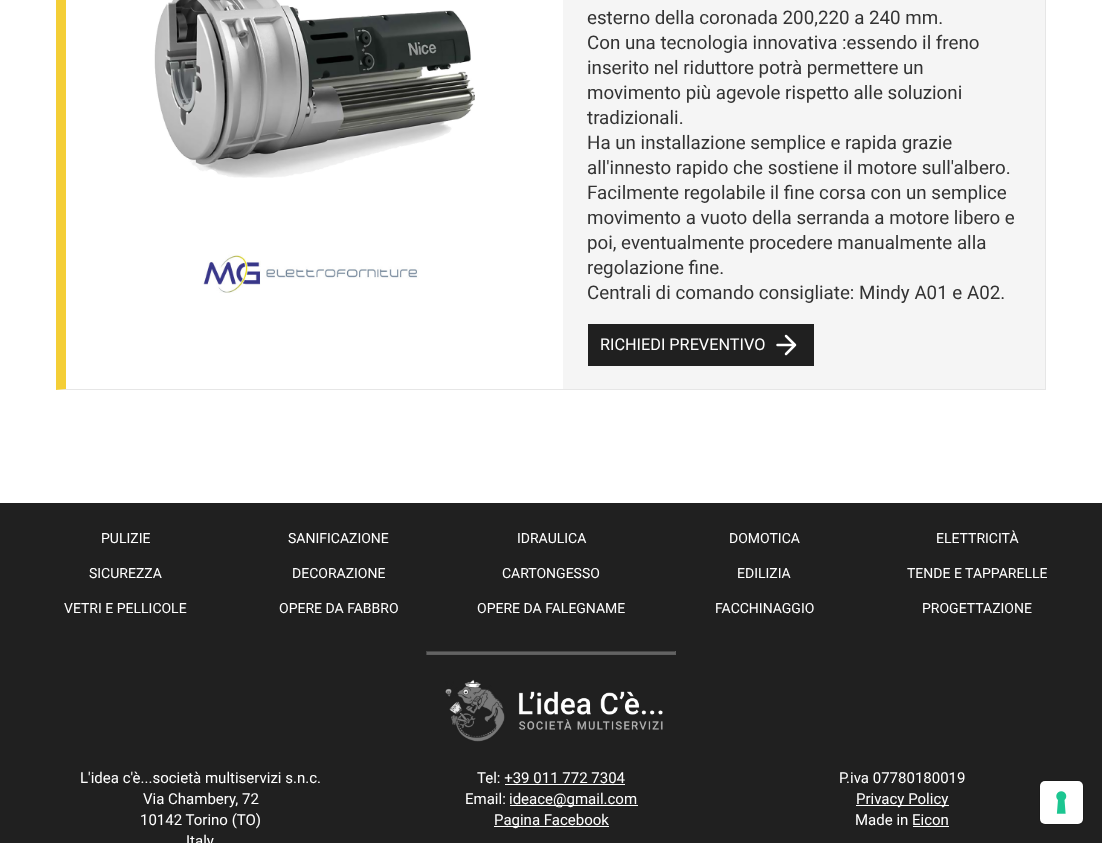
<svg xmlns="http://www.w3.org/2000/svg" width="1102" height="843" viewBox="0 0 1102 843">
  <rect width="100%" height="100%" fill="#202020"/>
  <path d="M0 0h1102v503H0z" fill="#fff"/>
  <path d="M1045 0h1v390H1045z" fill="#e6e6e6"/>
  <path d="M1046 390H56L66 389H1045Z" fill="#e6e6e6"/>
  <path d="M56 390V-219L66-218V389Z" fill="#f4ce36"/>
  <image x="154" y="0" width="321" height="293" href="img/1.png"/>
  <path d="M563 0h482v389H563z" fill="#f5f5f5"/>
  <path d="M588 324h226v42H588z" fill="#202020"/>
  <path d="M777.5 345H795M786 336L795 345L786 354" fill="none" stroke="#fff" stroke-width="2.5" stroke-linecap="round" stroke-linejoin="round"/>
  <path d="M426 652h250v2H426z" fill="#636363"/>
  <path d="M426 651h250v1H426z" fill="#464646"/>
  <path d="M675 651h1v4H675z" fill="#5e5e5e"/>
  <path d="M426 654h250v1H426z" fill="#5e5e5e"/>
  <path d="M426 651h1v4H426z" fill="#464646"/>
  <image x="445" y="679" width="218" height="63" href="img/2.png"/>
  <path d="M505 784h120v1H505z" fill="#fff"/>
  <path d="M510 805h128v1H510z" fill="#fff"/>
  <path d="M494 826h115v1H494z" fill="#fff"/>
  <path d="M856 805h93v1H856z" fill="#fff"/>
  <path d="M913 826h36v1H913z" fill="#fff"/>
  <rect x="1039.5" y="780.5" width="44" height="44" rx="5.5" fill="none" stroke="#1b1b1b"/>
  <rect x="1040" y="781" width="43" height="43" rx="5" fill="#fff"/>
  <image x="1056" y="791" width="11" height="23" href="img/3.png"/>
  <g font-family="Roboto" font-size="18.75" fill="#333">
    <text x="587" y="24">esterno della coronada 200,220 a 240 mm.</text>
    <text x="587" y="49">Con una tecnologia innovativa :essendo il freno</text>
    <text x="587" y="74">inserito nel riduttore potrà permettere un</text>
    <text x="587" y="99">movimento più agevole rispetto alle soluzioni</text>
    <text x="587" y="124">tradizionali.</text>
    <text x="587" y="149">Ha un installazione semplice e rapida grazie</text>
    <text x="587" y="174">all'innesto rapido che sostiene il motore sull'albero.</text>
    <text x="587" y="199">Facilmente regolabile il fine corsa con un semplice</text>
    <text x="587" y="224">movimento a vuoto della serranda a motore libero e</text>
    <text x="587" y="249">poi, eventualmente procedere manualmente alla</text>
    <text x="587" y="274">regolazione fine.</text>
    <text x="587" y="299">Centrali di comando consigliate: Mindy A01 e A02.</text>
  </g>
  <text x="600" y="350" font-family="Roboto" font-size="16.25" fill="#fff">RICHIEDI PREVENTIVO</text>
  <g font-family="Roboto" font-size="14" fill="#fff">
    <text x="101" y="543">PULIZIE</text>
    <text x="288" y="543">SANIFICAZIONE</text>
    <text x="517" y="543">IDRAULICA</text>
    <text x="729" y="543">DOMOTICA</text>
    <text x="936" y="543">ELETTRICITÀ</text>
    <text x="89" y="578">SICUREZZA</text>
    <text x="292" y="578">DECORAZIONE</text>
    <text x="502" y="578">CARTONGESSO</text>
    <text x="737" y="578">EDILIZIA</text>
    <text x="907" y="578">TENDE E TAPPARELLE</text>
    <text x="64" y="613">VETRI E PELLICOLE</text>
    <text x="279" y="613">OPERE DA FABBRO</text>
    <text x="477" y="613">OPERE DA FALEGNAME</text>
    <text x="715" y="613">FACCHINAGGIO</text>
    <text x="922" y="613">PROGETTAZIONE</text>
  </g>
  <g font-family="Roboto" font-size="15" fill="#fff">
    <text x="80" y="783">L'idea c'è...società multiservizi s.n.c.</text>
    <text x="143" y="804">Via Chambery, 72</text>
    <text x="140" y="825">10142 Torino (TO)</text>
    <text x="186" y="846">Italy</text>
    <text x="477" y="783">Tel: +39 011 772 7304</text>
    <text x="465" y="804">Email:</text>
    <text x="509" y="804">ideace@gmail.com</text>
    <text x="494" y="825">Pagina Facebook</text>
    <text x="839" y="783">P.iva 07780180019</text>
    <text x="856" y="804">Privacy Policy</text>
    <text x="855" y="825">Made in Eicon</text>
  </g>
</svg>
